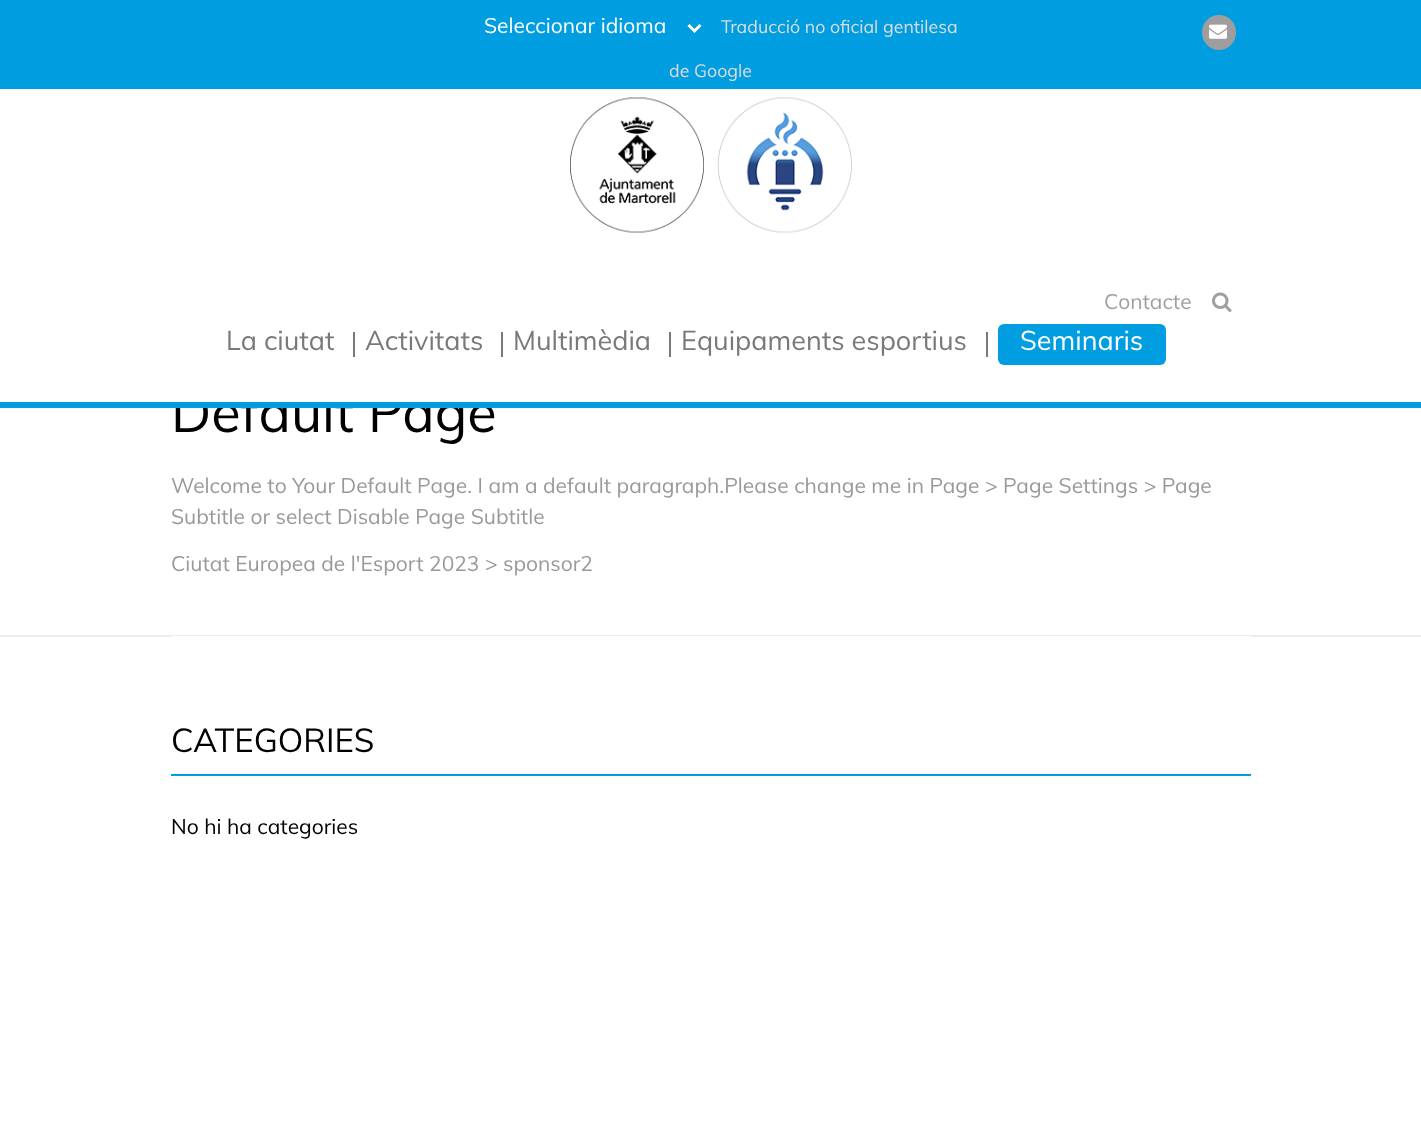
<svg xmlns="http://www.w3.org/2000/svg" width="1421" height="1132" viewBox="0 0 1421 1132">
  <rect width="100%" height="100%" fill="#fff"/>
  <path d="M0 0h1421v89H0z" fill="#009ee0"/>
  <path d="M688.5 25L694.5 31L700.5 25" fill="none" stroke="#fff" stroke-width="3"/>
  <rect x="1202" y="15" width="34" height="35" rx="17" fill="#9f9d9e"/>
  <image x="1209" y="24" width="18" height="15" href="img/1.png"/>
  <image x="570" y="97" width="282" height="136" href="img/2.png"/>
  <image x="1212" y="292" width="20" height="20" href="img/3.png"/>
  <path d="M353 332h2v25H353z" fill="#797979"/>
  <path d="M501 332h2v25H501z" fill="#797979"/>
  <path d="M669 332h2v25H669z" fill="#797979"/>
  <path d="M986 332h2v25H986z" fill="#797979"/>
  <rect x="998" y="324" width="168" height="41" rx="6" fill="#009ee0"/>
  <path d="M0 635h1421v2H0z" fill="#eee"/>
  <path d="M171 636h1080v1H171z" fill="#fff"/>
  <path d="M171 774h1080v2H171z" fill="#009ee0"/>
  <text x="484" y="33" font-family="Muli" font-size="21" fill="#fff">Seleccionar idioma</text>
  <g font-family="Muli" font-size="17.8" fill="#dcdcdc">
    <text x="721" y="33">Traducció no oficial gentilesa</text>
    <text x="669" y="77">de Google</text>
  </g>
  <text x="1104" y="309" font-family="Muli" font-size="21" fill="#9f9f9f">Contacte</text>
  <g font-family="Muli" font-size="27" fill="#797979">
    <text x="226" y="350">La ciutat</text>
    <text x="365" y="350">Activitats</text>
    <text x="513" y="350">Multimèdia</text>
    <text x="681" y="350">Equipaments esportius</text>
  </g>
  <text x="1020" y="350" font-family="Muli" font-size="27" fill="#fff">Seminaris</text>
  <text x="171" y="432" font-family="Muli" font-size="54" fill="#000">Default Page</text>
  <path d="M0 402h1421v6H0z" fill="#009ee0"/>
  <path d="M175 392h226v10H175z" fill="#fff"/>
  <g font-family="Muli" font-size="21" fill="#999">
    <text x="171" y="493">Welcome to Your Default Page. I am a default paragraph.Please change me in Page &gt; Page Settings &gt; Page</text>
    <text x="171" y="524">Subtitle or select Disable Page Subtitle</text>
    <text x="171" y="571">Ciutat Europea de l'Esport 2023 &gt; sponsor2</text>
  </g>
  <text x="171" y="752" font-family="Muli" font-size="33" fill="#000">CATEGORIES</text>
  <text x="171" y="834" font-family="Muli" font-size="21" fill="#000">No hi ha categories</text>
</svg>
